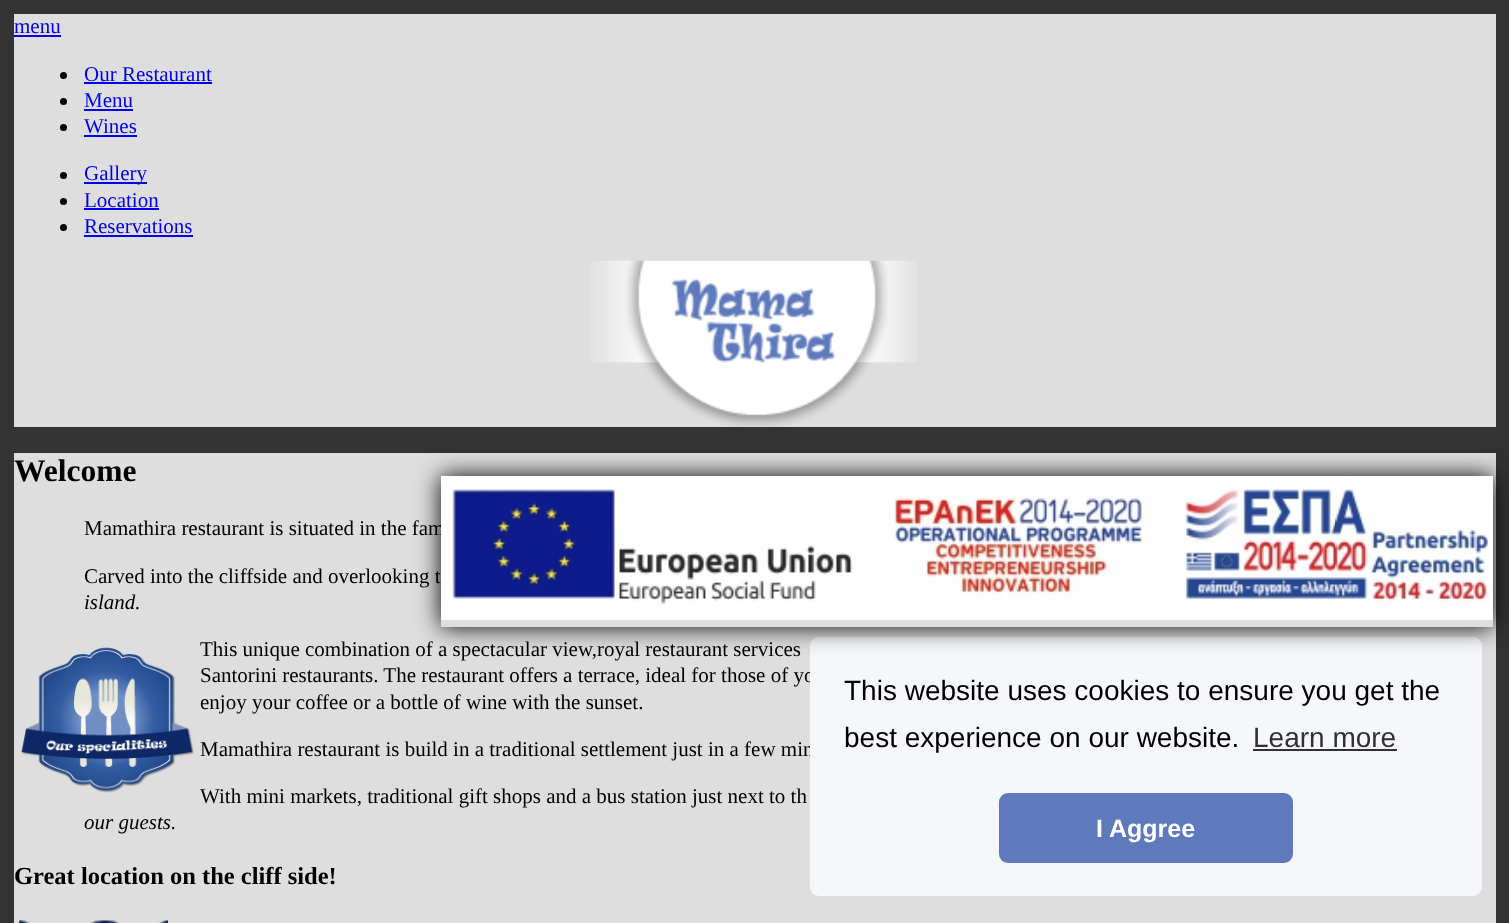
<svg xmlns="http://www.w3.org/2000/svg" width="1509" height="923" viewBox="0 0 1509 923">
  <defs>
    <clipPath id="clip1"><path d="M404 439H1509V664H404ZM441 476H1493V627H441Z" clip-rule="evenodd"/></clipPath>
  </defs>
  <rect width="100%" height="100%" fill="#333"/>
  <path d="M14 14h1482v413H14z" fill="#dedede"/>
  <path d="M14 35h47v2H14z" fill="#00e"/>
  <circle cx="63.5" cy="75.5" r="3.5" fill="#000"/>
  <path d="M84 82h128v2H84z" fill="#00e"/>
  <circle cx="63.5" cy="101.5" r="3.5" fill="#000"/>
  <path d="M84 109h49v2H84z" fill="#00e"/>
  <circle cx="63.5" cy="127.5" r="3.5" fill="#000"/>
  <path d="M84 135h53v2H84z" fill="#00e"/>
  <circle cx="63.5" cy="175.5" r="3.5" fill="#000"/>
  <path d="M84 182h63v2H84z" fill="#00e"/>
  <circle cx="63.5" cy="201.5" r="3.5" fill="#000"/>
  <path d="M84 208h75v2H84z" fill="#00e"/>
  <circle cx="63.5" cy="227.5" r="3.5" fill="#000"/>
  <path d="M84 235h109v2H84z" fill="#00e"/>
  <image x="591" y="260" width="327" height="167" href="img/1.png"/>
  <path d="M14 453h1482v470H14z" fill="#dedede"/>
  <image x="21" y="647" width="173" height="146" href="img/3.png"/>
  <image x="19" y="920" width="149" height="3" href="img/4.png"/>
  <g font-family="Liberation Serif" font-size="21" fill="#00e">
    <text x="14" y="33">menu</text>
    <text x="84" y="81">Our Restaurant</text>
    <text x="84" y="107">Menu</text>
    <text x="84" y="133">Wines</text>
    <text x="84" y="180">Gallery</text>
    <text x="84" y="207">Location</text>
    <text x="84" y="233">Reservations</text>
  </g>
  <text x="14" y="481" font-family="Liberation Serif" font-size="31.5" font-weight="bold" fill="#000">Welcome</text>
  <g font-family="Liberation Serif" font-size="21" fill="#000">
    <text x="84" y="535">Mamathira restaurant is situated in the fam</text>
    <text x="84" y="583">Carved into the cliffside and overlooking t</text>
  </g>
  <text x="84" y="609" font-family="Liberation Serif" font-size="21" font-style="italic" fill="#000">island.</text>
  <g font-family="Liberation Serif" font-size="21" fill="#000">
    <text x="200" y="656">This unique combination of a spectacular view,royal restaurant services</text>
    <text x="200" y="682">Santorini restaurants. The restaurant offers a terrace, ideal for those of yo</text>
    <text x="200" y="709">enjoy your coffee or a bottle of wine with the sunset.</text>
    <text x="200" y="756">Mamathira restaurant is build in a traditional settlement just in a few min</text>
    <text x="200" y="803">With mini markets, traditional gift shops and a bus station just next to th</text>
  </g>
  <text x="84" y="829" font-family="Liberation Serif" font-size="21" font-style="italic" fill="#000">our guests.</text>
  <text x="14" y="884" font-family="Liberation Serif" font-size="24.5" font-weight="bold" fill="#000">Great location on the cliff side!</text>
  <rect x="810" y="637" width="672" height="259" rx="9" fill="#f6f7fb"/>
  <g clip-path="url(#clip1)">
    <path d="M441 476h1052v151H441z" fill="#000" filter="blur(12px)"/>
  </g>
  <image x="441" y="476" width="1052" height="144" href="img/2.png"/>
  <g font-family="Liberation Sans" font-size="28" fill="#000">
    <text x="844" y="700">This website uses cookies to ensure you get the</text>
    <text x="844" y="747">best experience on our website.</text>
  </g>
  <text x="1253" y="747" font-family="Liberation Sans" font-size="28" fill="#313132">Learn more</text>
  <path d="M1253 749h144v2H1253z" fill="#313132"/>
  <rect x="999" y="793" width="294" height="70" rx="9" fill="#5e79bc"/>
  <text x="1096" y="837" font-family="Liberation Sans" font-size="25" font-weight="bold" fill="#fff">I Aggree</text>
</svg>
